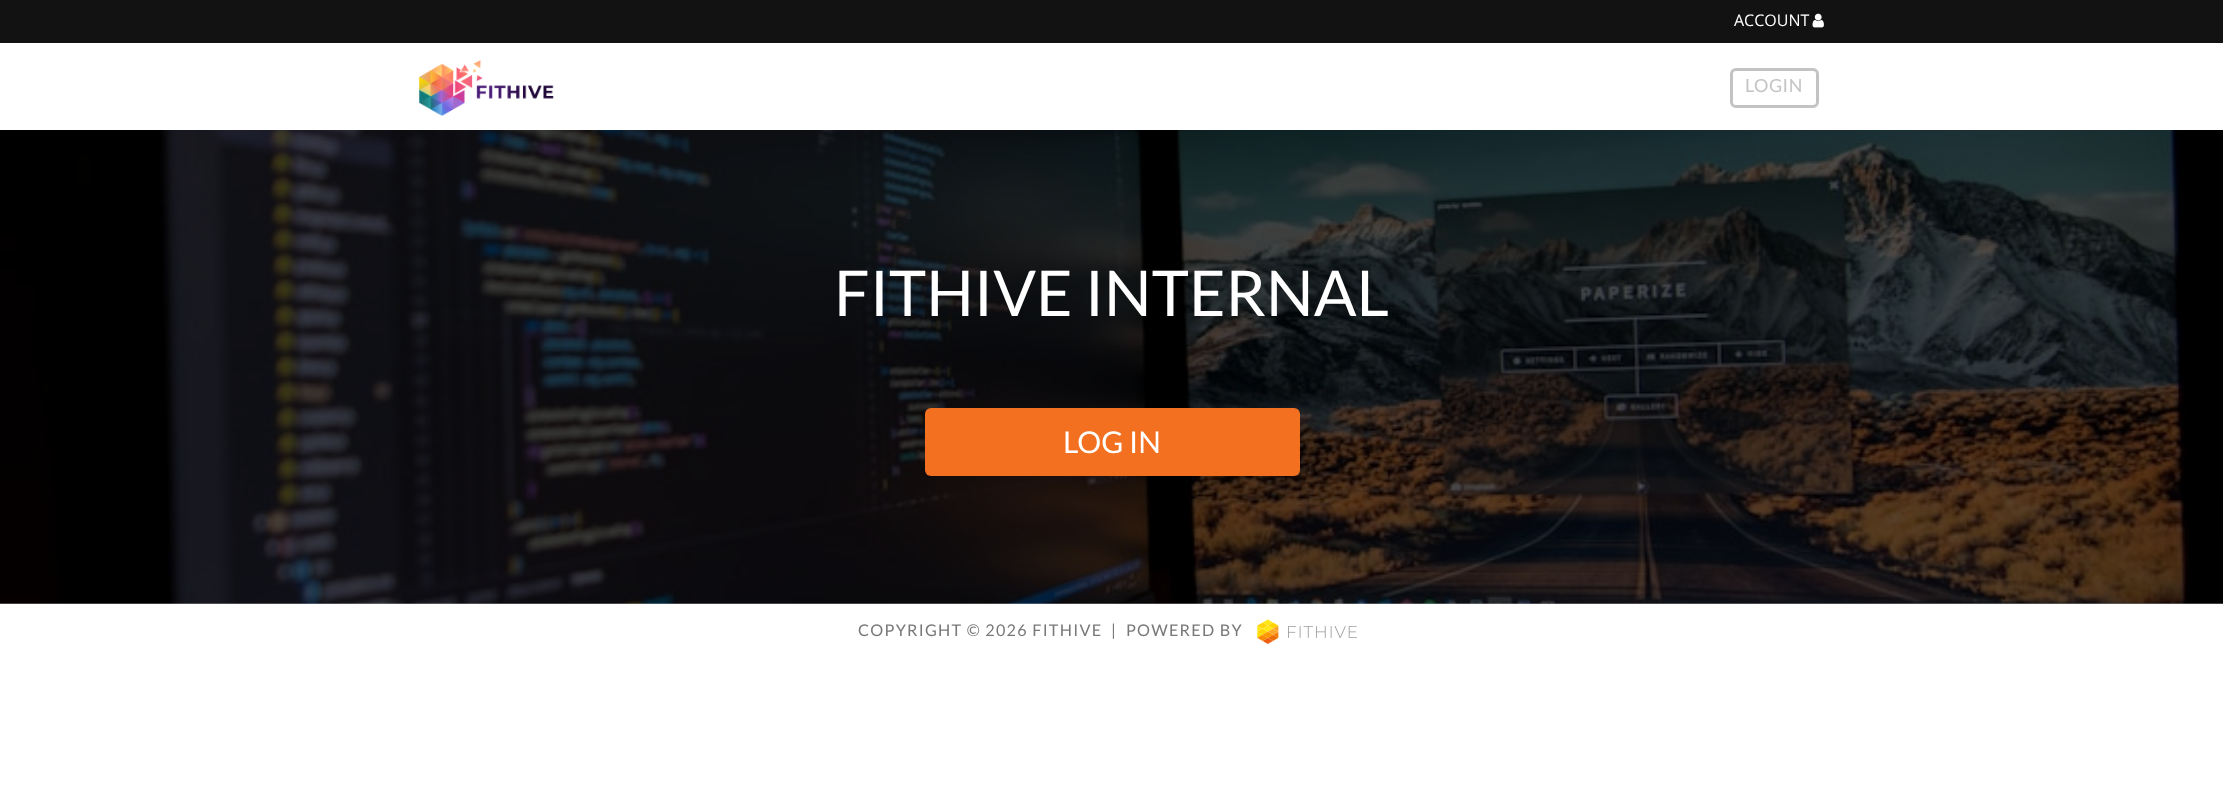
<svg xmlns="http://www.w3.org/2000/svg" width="2223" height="800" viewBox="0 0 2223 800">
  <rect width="100%" height="100%" fill="#fff"/>
  <path d="M0 0h2223v43H0z" fill="#121212"/>
  <image x="1812" y="13" width="12" height="15" href="img/1.png"/>
  <image x="418" y="60" width="136" height="56" href="img/2.png"/>
  <rect x="1731.5" y="69.5" width="86" height="37" rx="4.5" fill="none" stroke="#c3c2c5" stroke-width="3"/>
  <image x="0" y="130" width="2223" height="474" href="img/3.png"/>
  <rect x="925" y="408" width="375" height="68" rx="6" fill="#f37021"/>
  <image x="1257" y="619" width="100" height="25" href="img/4.png"/>
  <text x="1734" y="26" font-family="Open Sans" font-size="16" fill="#fff">ACCOUNT</text>
  <text x="1745" y="92" font-family="Lato" font-size="18" letter-spacing="0.5" fill="#c3c2c5">LOGIN</text>
  <text x="834" y="316" font-family="Lato" font-size="63" fill="#fff">FITHIVE INTERNAL</text>
  <text x="1063" y="453" font-family="Lato" font-size="30" fill="#fff">LOG IN</text>
  <text x="858" y="636" font-family="Lato" font-size="16.2" letter-spacing="1.25" fill="#787878" xml:space="preserve">COPYRIGHT © 2026 FITHIVE  |  POWERED BY</text>
</svg>
